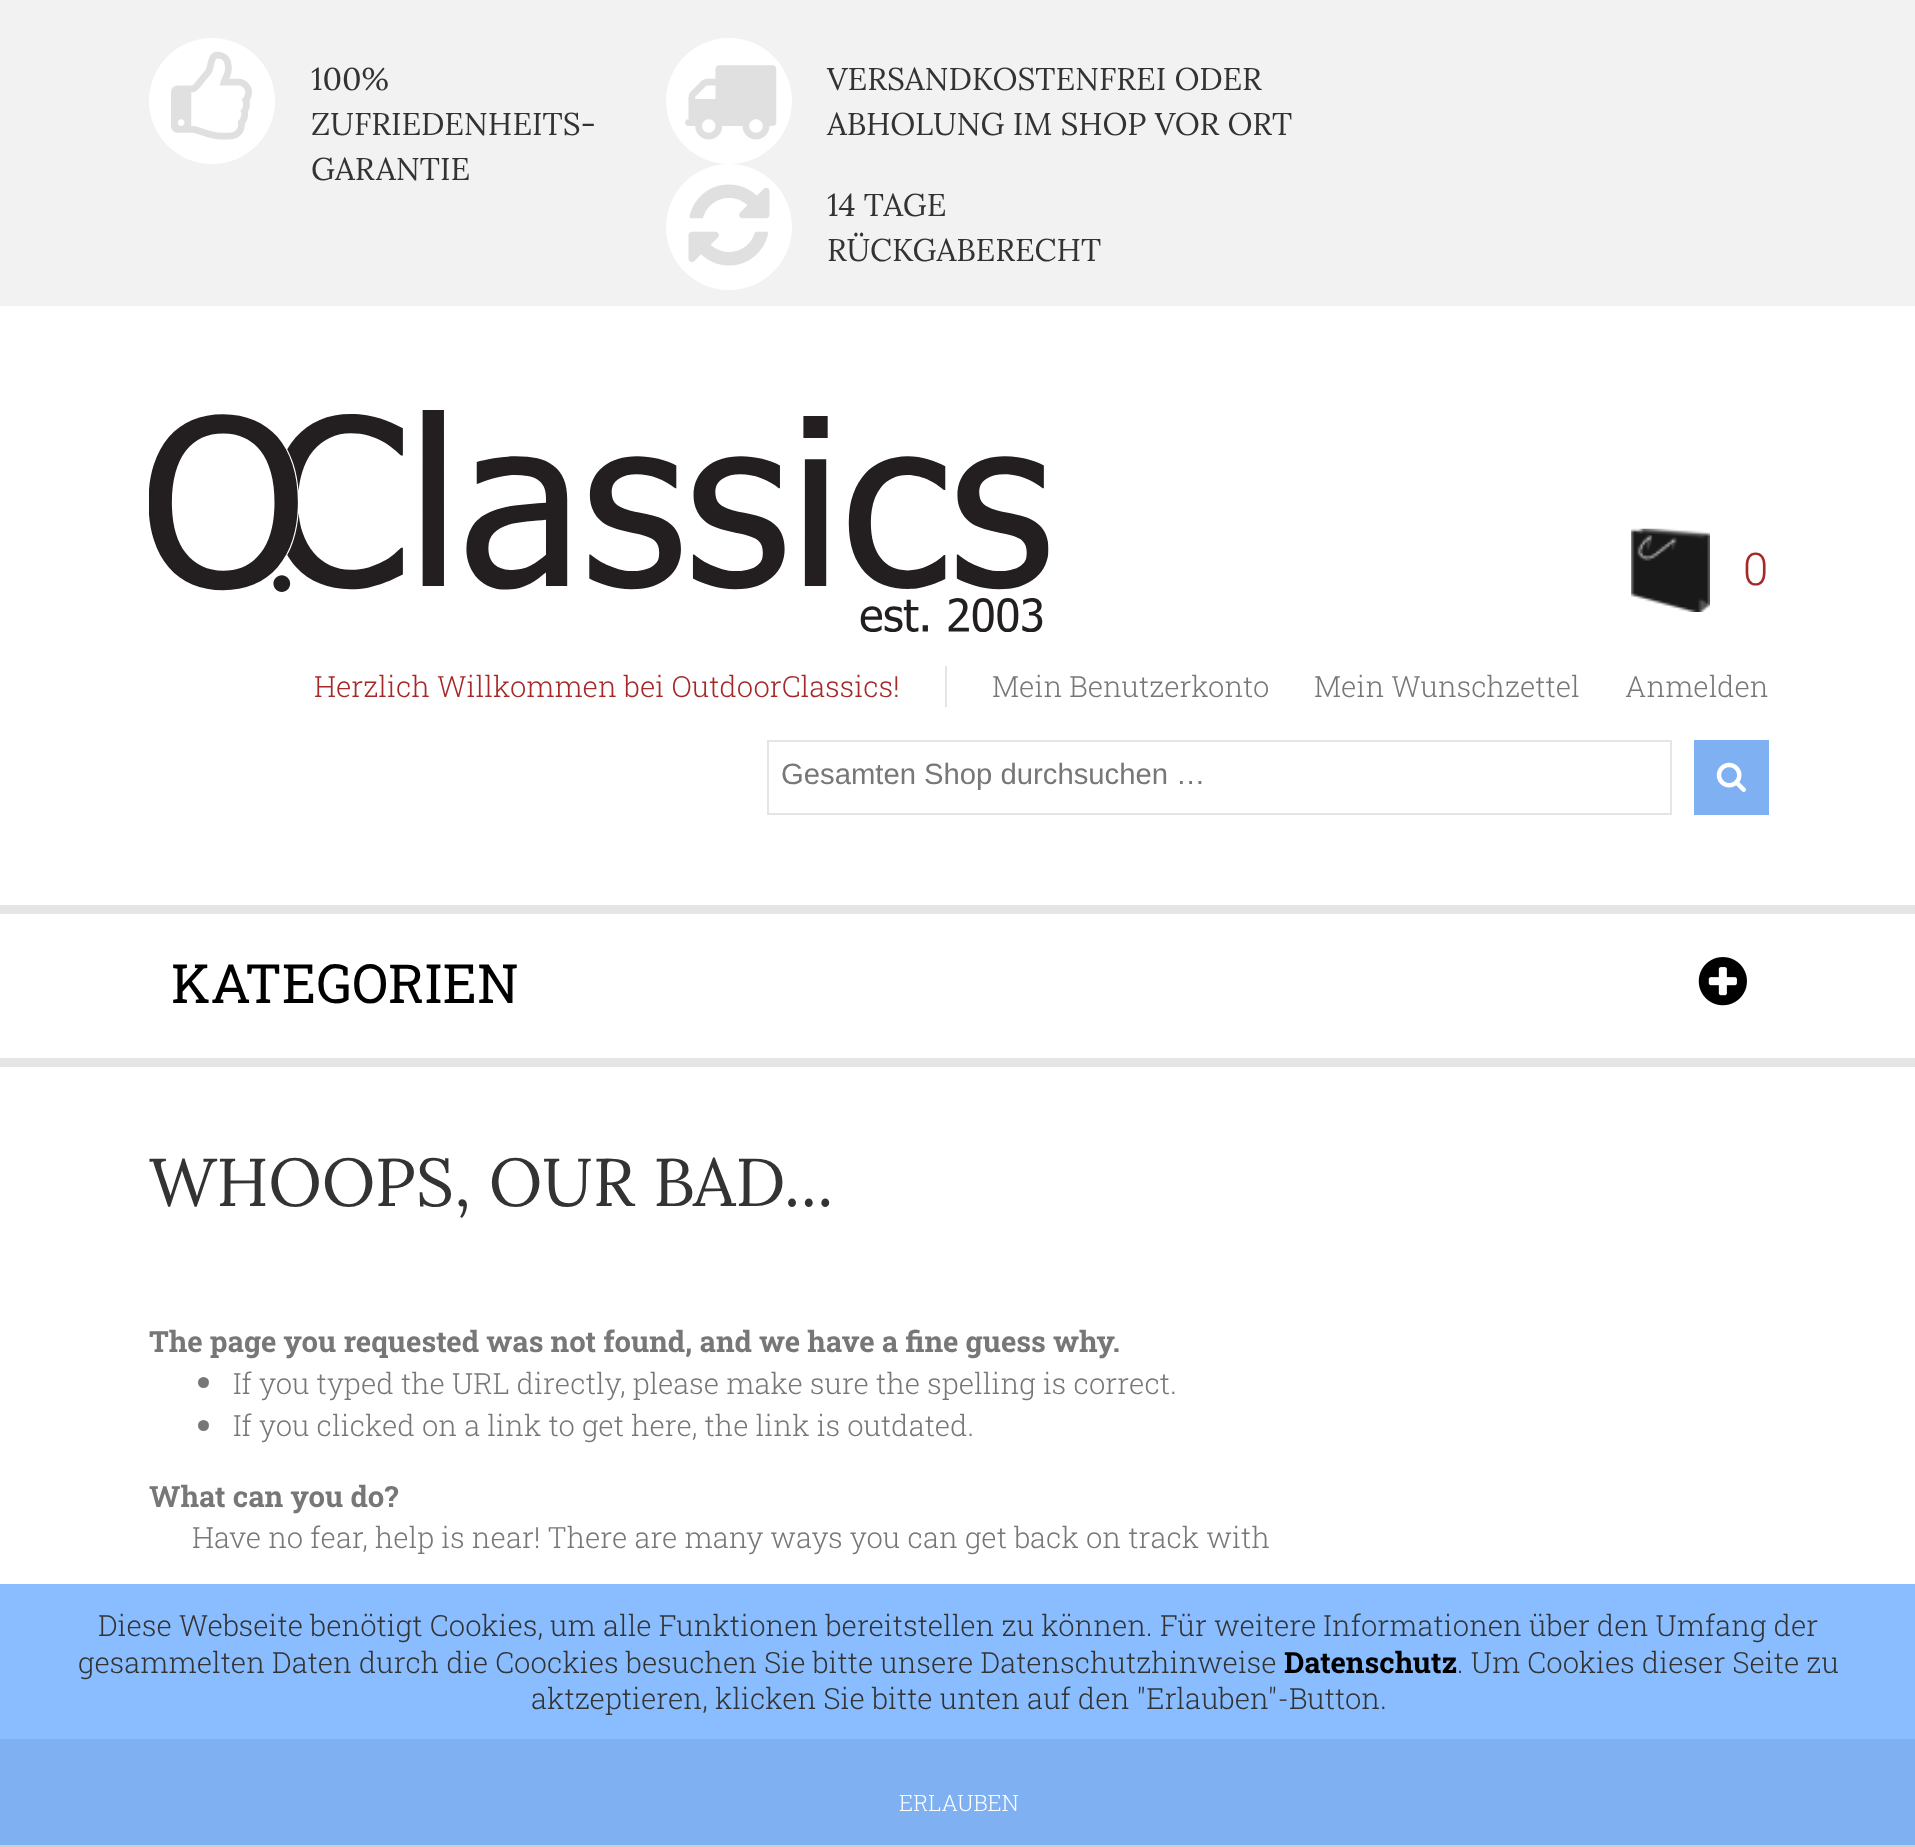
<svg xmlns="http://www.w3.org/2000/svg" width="1915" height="1847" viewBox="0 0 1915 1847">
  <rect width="100%" height="100%" fill="#fff"/>
  <path d="M0 0h1915v306H0z" fill="#f2f2f2"/>
  <circle cx="212" cy="101" r="63" fill="#fff"/>
  <image x="171" y="51" width="81" height="89" href="img/1.png"/>
  <circle cx="729" cy="101" r="63" fill="#fff"/>
  <image x="685" y="65" width="92" height="75" href="img/2.png"/>
  <circle cx="729" cy="227" r="63" fill="#fff"/>
  <image x="688" y="184" width="82" height="82" href="img/3.png"/>
  <image x="149" y="410" width="900" height="222" href="img/4.png"/>
  <image x="1631" y="528" width="79" height="84" href="img/5.png"/>
  <path d="M945 666h2v41H945z" fill="#e5e5e5"/>
  <path d="M768 741h903v73H768z" fill="none" stroke="#e5e5e5" stroke-width="2"/>
  <path d="M1694 740h75v75H1694z" fill="#7eb0f2"/>
  <image x="1716" y="762" width="30" height="30" href="img/6.png"/>
  <path d="M0 905h1915v9H0z" fill="#e5e5e5"/>
  <path d="M0 1058h1915v9H0z" fill="#e5e5e5"/>
  <image x="1698" y="957" width="49" height="49" href="img/7.png"/>
  <circle cx="203.5" cy="1382.5" r="5.5" fill="#777"/>
  <circle cx="203.5" cy="1425.5" r="5.5" fill="#777"/>
  <path d="M0 1739h1915v106H0z" fill="#7eb0f2"/>
  <path d="M0 1845h1915v2H0z" fill="#cfcfcf"/>
  <path d="M0 1584h1915v155H0z" fill="#89bdff"/>
  <g font-family="Lora" font-size="31.5" fill="#333">
    <text x="311" y="90">100%</text>
    <text x="311" y="135">ZUFRIEDENHEITS-</text>
    <text x="311" y="180">GARANTIE</text>
    <text x="827" y="90">VERSANDKOSTENFREI ODER</text>
    <text x="827" y="135">ABHOLUNG IM SHOP VOR ORT</text>
    <text x="827" y="216">14 TAGE</text>
    <text x="827" y="261">RÜCKGABERECHT</text>
  </g>
  <text x="1743" y="585" font-family="Roboto Slab" font-size="45" font-weight="300" fill="#a62929">0</text>
  <text x="314" y="697" font-family="Roboto Slab" font-size="29.25" font-weight="300" fill="#a62929">Herzlich Willkommen bei OutdoorClassics!</text>
  <g font-family="Roboto Slab" font-size="29.25" font-weight="300" fill="#777">
    <text x="992" y="697">Mein Benutzerkonto</text>
    <text x="1314" y="697">Mein Wunschzettel</text>
    <text x="1625" y="697">Anmelden</text>
  </g>
  <text x="781" y="784" font-family="Liberation Sans" font-size="29.25" fill="#777">Gesamten Shop durchsuchen …</text>
  <text x="171" y="1003" font-family="Roboto Slab" font-size="54" fill="#000">KATEGORIEN</text>
  <text x="149" y="1206" font-family="Lora" font-size="67.5" fill="#333">WHOOPS, OUR BAD...</text>
  <text x="149" y="1352" font-family="Roboto Slab" font-size="29.25" font-weight="bold" fill="#777">The page you requested was not found, and we have a fine guess why.</text>
  <g font-family="Roboto Slab" font-size="29.25" font-weight="300" fill="#777">
    <text x="233" y="1394">If you typed the URL directly, please make sure the spelling is correct.</text>
    <text x="233" y="1436">If you clicked on a link to get here, the link is outdated.</text>
  </g>
  <text x="149" y="1507" font-family="Roboto Slab" font-size="29.25" font-weight="bold" fill="#777">What can you do?</text>
  <text x="192" y="1548" font-family="Roboto Slab" font-size="29.25" font-weight="300" fill="#777">Have no fear, help is near! There are many ways you can get back on track with</text>
  <g font-family="Roboto Slab" font-size="29.25" font-weight="300" fill="#333">
    <text x="98" y="1636">Diese Webseite benötigt Cookies, um alle Funktionen bereitstellen zu können. Für weitere Informationen über den Umfang der</text>
    <text x="78" y="1673">gesammelten Daten durch die Coockies besuchen Sie bitte unsere Datenschutzhinweise</text>
  </g>
  <text x="1284" y="1673" font-family="Roboto Slab" font-size="29.25" font-weight="bold" fill="#000">Datenschutz</text>
  <g font-family="Roboto Slab" font-size="29.25" font-weight="300" fill="#333">
    <text x="1457" y="1673">. Um Cookies dieser Seite zu</text>
    <text x="531" y="1709">aktzeptieren, klicken Sie bitte unten auf den "Erlauben"-Button.</text>
  </g>
  <text x="899" y="1811" font-family="Roboto Slab" font-size="22.5" font-weight="300" fill="#fff">ERLAUBEN</text>
</svg>
